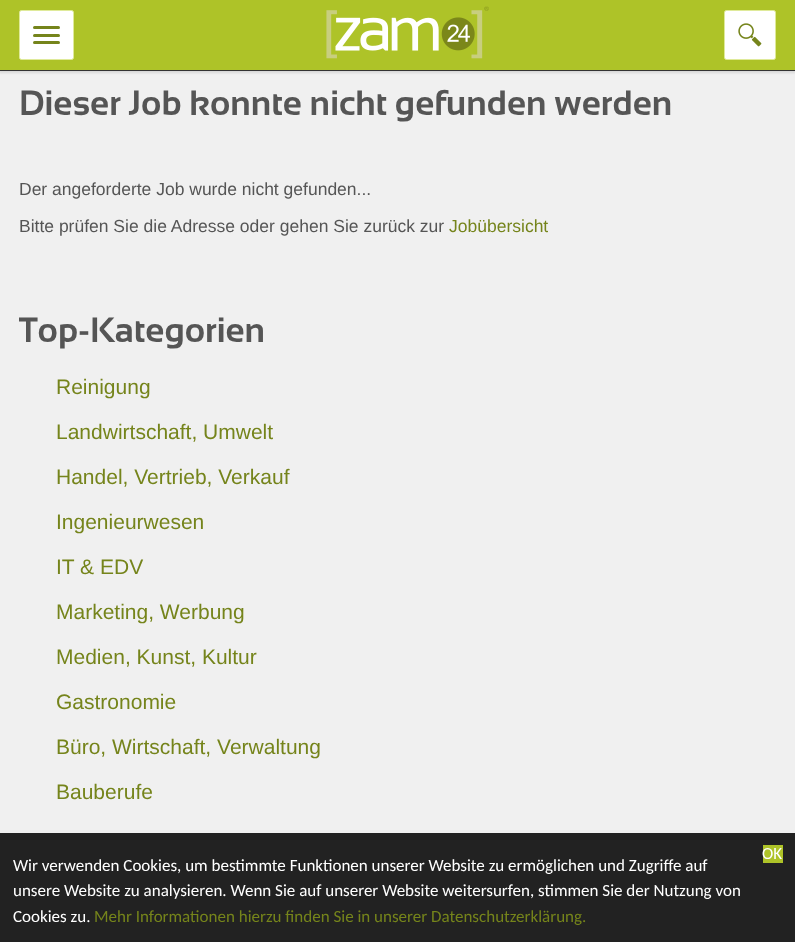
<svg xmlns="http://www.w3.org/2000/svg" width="795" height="942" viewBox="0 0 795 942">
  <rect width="100%" height="100%" fill="#f0f0f0"/>
  <path d="M-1 -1h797v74H-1z" fill="#0000001a" filter="blur(1px)"/>
  <path d="M0 0h795v70H0z" fill="#aec328"/>
  <path d="M0 70h795v1H0z" fill="#333"/>
  <rect x="19.5" y="10.5" width="54" height="49" rx="2" fill="#fff" stroke="#dfea9a"/>
  <rect x="33" y="26" width="27" height="3" rx="1.5" fill="#75841b"/>
  <rect x="33" y="34" width="27" height="3" rx="1.5" fill="#75841b"/>
  <rect x="33" y="41" width="27" height="3" rx="1.5" fill="#75841b"/>
  <image x="326" y="6" width="163" height="53" href="img/1.png"/>
  <rect x="724.5" y="10.5" width="51" height="49" rx="2" fill="#fff" stroke="#dfea9a"/>
  <image x="738" y="23" width="24" height="24" href="img/2.png"/>
  <path d="M0 833h795v109H0z" fill="#222"/>
  <path d="M763 845h20v18H763z" fill="#aec328"/>
  <text x="19" y="115" font-family="Sansation" font-size="35" font-weight="bold" fill="#555">Dieser Job konnte nicht gefunden werden</text>
  <g font-family="Liberation Sans" font-size="17.5" fill="#555">
    <text x="19" y="195">Der angeforderte Job wurde nicht gefunden...</text>
    <text x="19" y="232">Bitte prüfen Sie die Adresse oder gehen Sie zurück zur</text>
  </g>
  <text x="449" y="232" font-family="Liberation Sans" font-size="17.5" fill="#75841b">Jobübersicht</text>
  <text x="19" y="342" font-family="Sansation" font-size="35" font-weight="bold" fill="#555">Top-Kategorien</text>
  <g font-family="Liberation Sans" font-size="21" fill="#75841b">
    <text x="56" y="394">Reinigung</text>
    <text x="56" y="439">Landwirtschaft, Umwelt</text>
    <text x="56" y="484">Handel, Vertrieb, Verkauf</text>
    <text x="56" y="529">Ingenieurwesen</text>
    <text x="56" y="574">IT &amp; EDV</text>
    <text x="56" y="619">Marketing, Werbung</text>
    <text x="56" y="664">Medien, Kunst, Kultur</text>
    <text x="56" y="709">Gastronomie</text>
    <text x="56" y="754">Büro, Wirtschaft, Verwaltung</text>
    <text x="56" y="799">Bauberufe</text>
  </g>
  <g font-family="Carlito" font-size="17" fill="#fff">
    <text x="762" y="859">OK</text>
    <text x="13" y="871">Wir verwenden Cookies, um bestimmte Funktionen unserer Website zu ermöglichen und Zugriffe auf</text>
    <text x="13" y="896">unsere Website zu analysieren. Wenn Sie auf unserer Website weitersurfen, stimmen Sie der Nutzung von</text>
    <text x="13" y="922">Cookies zu.</text>
  </g>
  <text x="94" y="922" font-family="Carlito" font-size="17" fill="#75841b">Mehr Informationen hierzu finden Sie in unserer Datenschutzerklärung.</text>
</svg>
